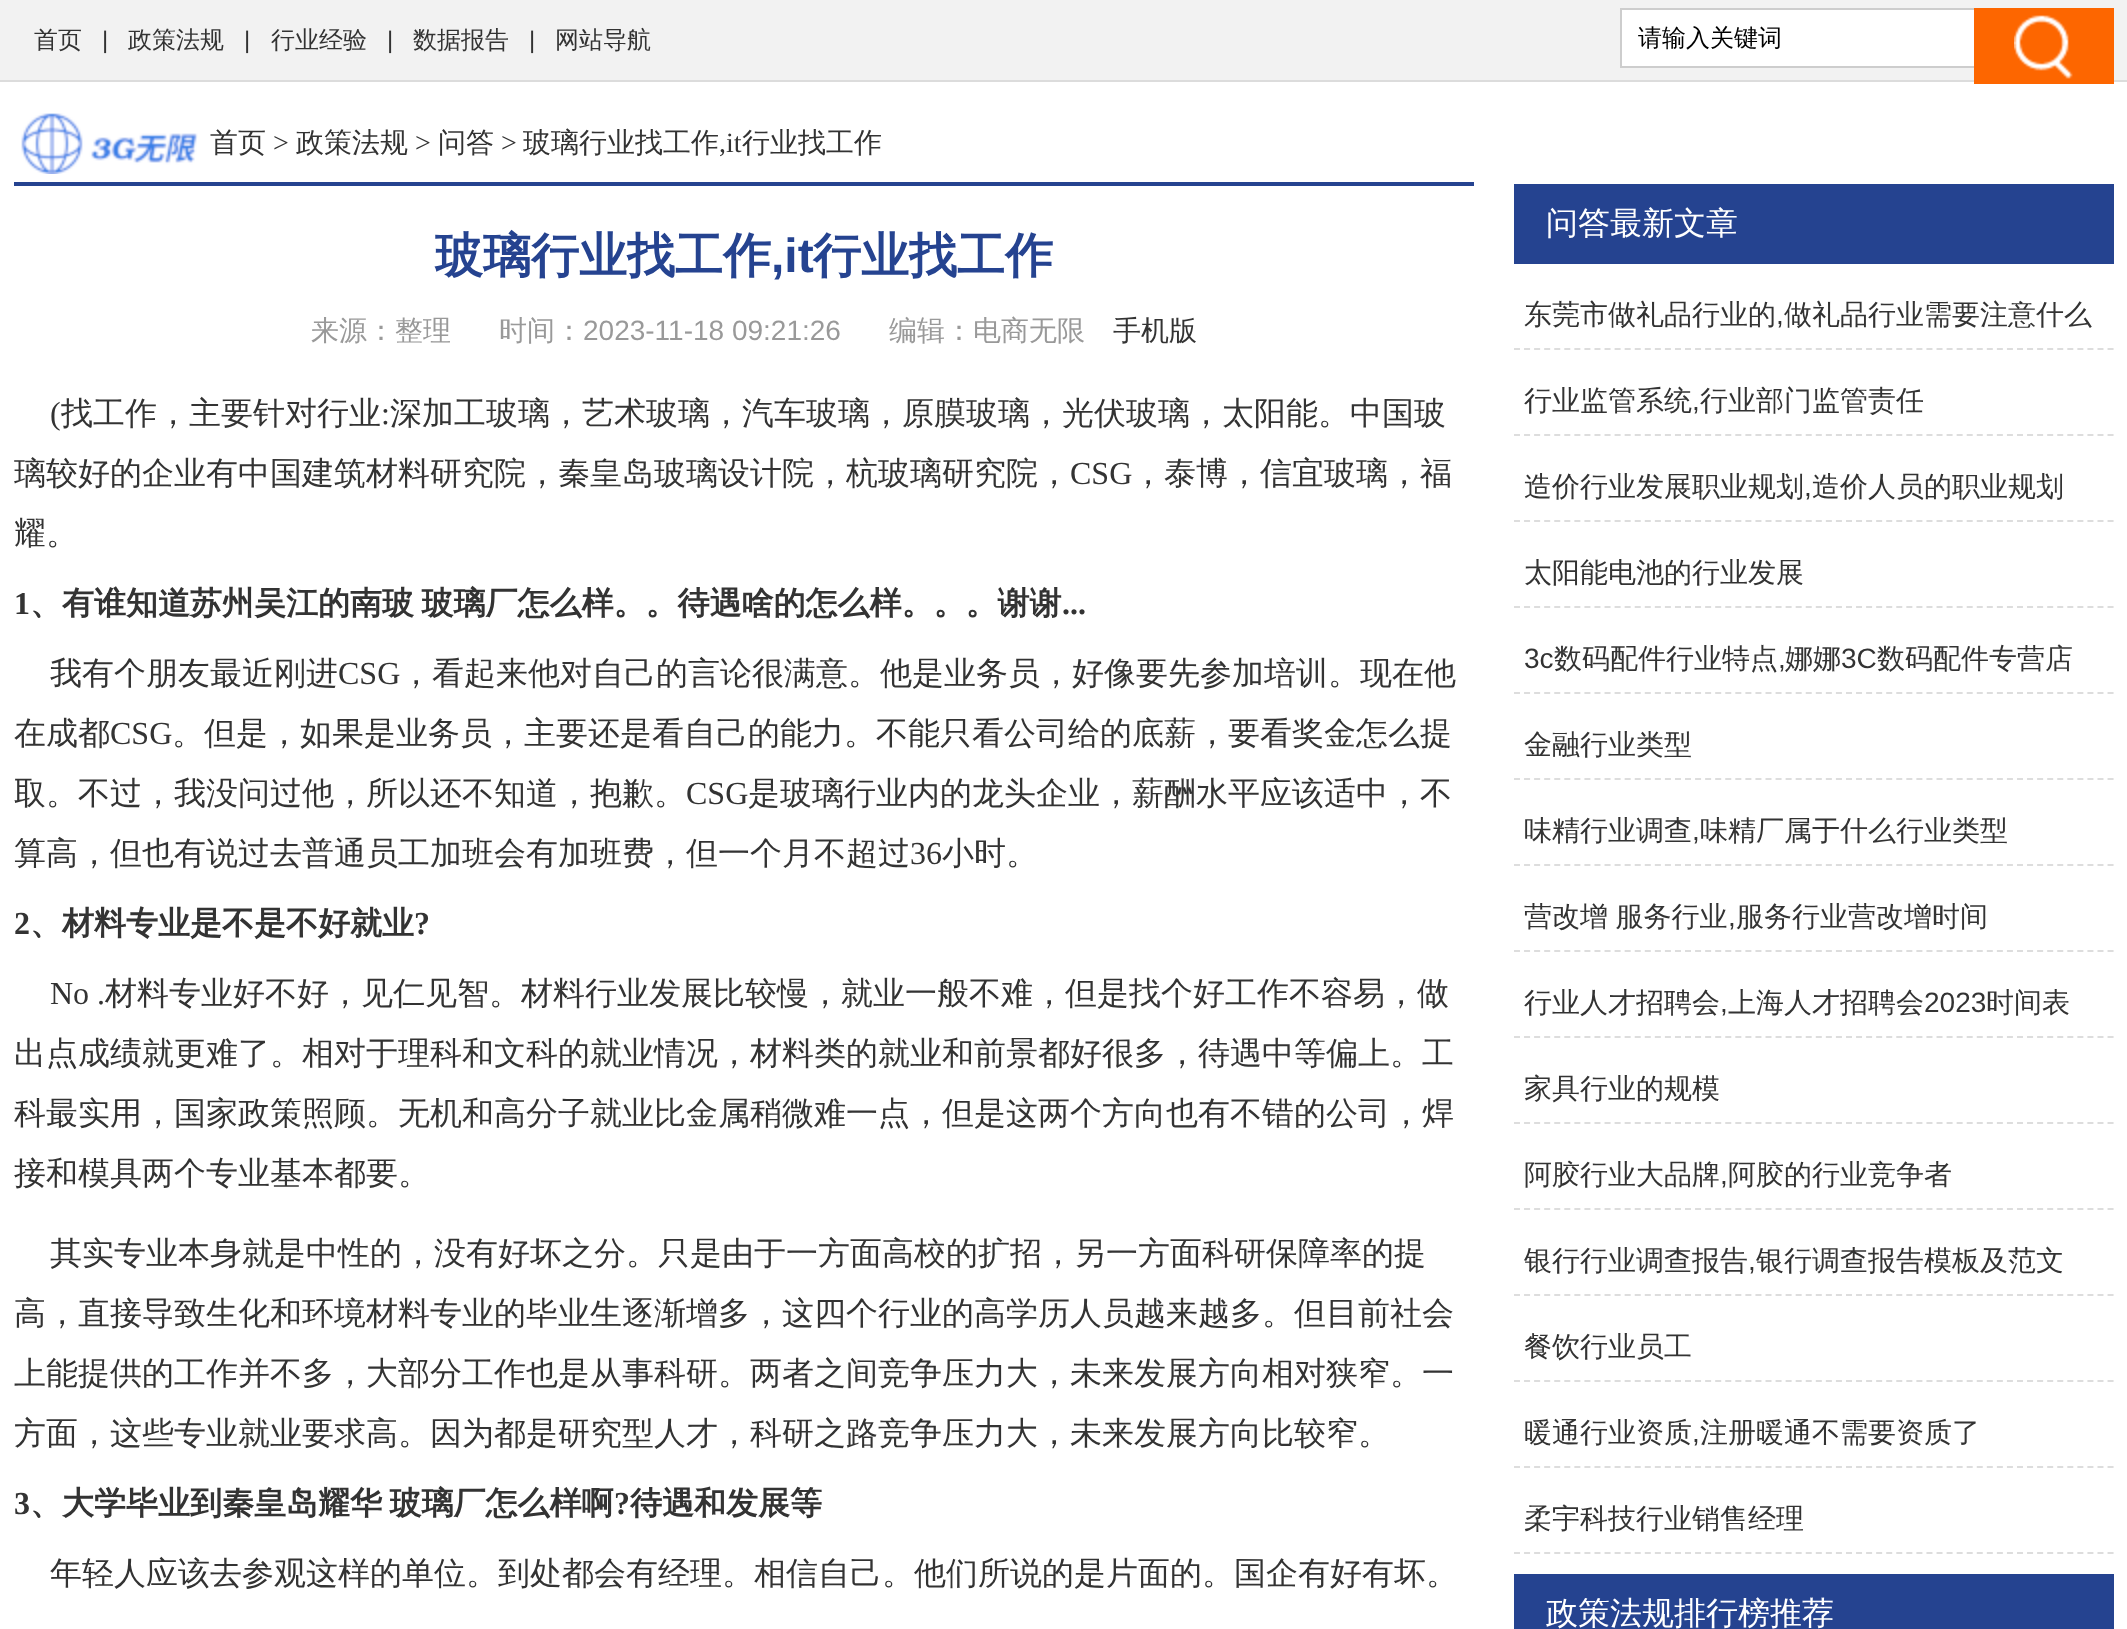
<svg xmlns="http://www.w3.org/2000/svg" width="2127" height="1629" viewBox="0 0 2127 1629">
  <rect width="100%" height="100%" fill="#fff"/>
  <path d="M0 0h2127v80H0z" fill="#f2f2f2"/>
  <path d="M0 80h2127v2H0z" fill="#dcdcdc"/>
  <path d="M1622 10h352v56H1622z" fill="#fff"/>
  <path d="M1620 8h354v2H1620z" fill="#cdcdcd"/>
  <path d="M1620 66h354v2H1620z" fill="#cdcdcd"/>
  <path d="M1620 8h2v60H1620z" fill="#cdcdcd"/>
  <path d="M1974 8h140v76H1974z" fill="#fd6600"/>
  <image x="2014" y="15" width="59" height="64" href="img/1.png"/>
  <path d="M14 182h1460v4H14z" fill="#254390"/>
  <image x="21" y="113" width="177" height="61" href="img/2.png"/>
  <path d="M1514 184h600v80H1514z" fill="#254390"/>
  <path d="M1514 349H2114" fill="none" stroke="#ddd" stroke-width="2" stroke-dasharray="6 4.06"/>
  <path d="M1514 435H2114" fill="none" stroke="#ddd" stroke-width="2" stroke-dasharray="6 4.06"/>
  <path d="M1514 521H2114" fill="none" stroke="#ddd" stroke-width="2" stroke-dasharray="6 4.06"/>
  <path d="M1514 607H2114" fill="none" stroke="#ddd" stroke-width="2" stroke-dasharray="6 4.06"/>
  <path d="M1514 693H2114" fill="none" stroke="#ddd" stroke-width="2" stroke-dasharray="6 4.06"/>
  <path d="M1514 779H2114" fill="none" stroke="#ddd" stroke-width="2" stroke-dasharray="6 4.06"/>
  <path d="M1514 865H2114" fill="none" stroke="#ddd" stroke-width="2" stroke-dasharray="6 4.06"/>
  <path d="M1514 951H2114" fill="none" stroke="#ddd" stroke-width="2" stroke-dasharray="6 4.06"/>
  <path d="M1514 1037H2114" fill="none" stroke="#ddd" stroke-width="2" stroke-dasharray="6 4.06"/>
  <path d="M1514 1123H2114" fill="none" stroke="#ddd" stroke-width="2" stroke-dasharray="6 4.06"/>
  <path d="M1514 1209H2114" fill="none" stroke="#ddd" stroke-width="2" stroke-dasharray="6 4.06"/>
  <path d="M1514 1295H2114" fill="none" stroke="#ddd" stroke-width="2" stroke-dasharray="6 4.06"/>
  <path d="M1514 1381H2114" fill="none" stroke="#ddd" stroke-width="2" stroke-dasharray="6 4.06"/>
  <path d="M1514 1467H2114" fill="none" stroke="#ddd" stroke-width="2" stroke-dasharray="6 4.06"/>
  <path d="M1514 1553H2114" fill="none" stroke="#ddd" stroke-width="2" stroke-dasharray="6 4.06"/>
  <path d="M1514 1574h600v55H1514z" fill="#254390"/>
  <text x="34" y="48" font-family="WenQuanYi Zen Hei" font-size="24" font-weight="500" fill="#333">首页</text>
  <text x="102" y="48" font-family="Liberation Sans" font-size="24" fill="#333">|</text>
  <text x="128" y="48" font-family="WenQuanYi Zen Hei" font-size="24" font-weight="500" fill="#333">政策法规</text>
  <text x="244" y="48" font-family="Liberation Sans" font-size="24" fill="#333">|</text>
  <text x="271" y="48" font-family="WenQuanYi Zen Hei" font-size="24" font-weight="500" fill="#333">行业经验</text>
  <text x="387" y="48" font-family="Liberation Sans" font-size="24" fill="#333">|</text>
  <text x="413" y="48" font-family="WenQuanYi Zen Hei" font-size="24" font-weight="500" fill="#333">数据报告</text>
  <text x="529" y="48" font-family="Liberation Sans" font-size="24" fill="#333">|</text>
  <text x="555" y="48" font-family="WenQuanYi Zen Hei" font-size="24" font-weight="500" fill="#333">网站导航</text>
  <text x="1638" y="46" font-family="WenQuanYi Zen Hei" font-size="24" font-weight="500" fill="#000">请输入关键词</text>
  <text x="210" y="152" font-family="WenQuanYi Zen Hei" font-size="28" font-weight="500" fill="#333">首页</text>
  <text x="273" y="152" font-family="Liberation Serif" font-size="28" fill="#333">&gt;</text>
  <text x="296" y="152" font-family="WenQuanYi Zen Hei" font-size="28" font-weight="500" fill="#333">政策法规</text>
  <text x="415" y="152" font-family="Liberation Serif" font-size="28" fill="#333">&gt;</text>
  <text x="438" y="152" font-family="WenQuanYi Zen Hei" font-size="28" font-weight="500" fill="#333">问答</text>
  <text x="501" y="152" font-family="Liberation Serif" font-size="28" fill="#333">&gt;</text>
  <text x="523" y="152" font-family="WenQuanYi Zen Hei" font-size="28" font-weight="500" fill="#333">玻璃行业找工作</text>
  <text x="719" y="152" font-family="Liberation Serif" font-size="28" fill="#333">,it</text>
  <text x="742" y="152" font-family="WenQuanYi Zen Hei" font-size="28" font-weight="500" fill="#333">行业找工作</text>
  <text x="435" y="272" font-family="WenQuanYi Zen Hei" font-size="48" font-weight="bold" fill="#254390">玻璃行业找工作</text>
  <text x="771" y="272" font-family="Liberation Sans" font-size="48" font-weight="bold" fill="#254390">,it</text>
  <text x="813" y="272" font-family="WenQuanYi Zen Hei" font-size="48" font-weight="bold" fill="#254390">行业找工作</text>
  <g font-family="WenQuanYi Zen Hei" font-size="28" font-weight="500" fill="#999">
    <text x="311" y="340">来源：整理</text>
    <text x="499" y="340">时间：</text>
  </g>
  <text x="583" y="340" font-family="Liberation Sans" font-size="28" fill="#999">2023-11-18 09:21:26</text>
  <text x="889" y="340" font-family="WenQuanYi Zen Hei" font-size="28" font-weight="500" fill="#999">编辑：电商无限</text>
  <text x="1113" y="340" font-family="WenQuanYi Zen Hei" font-size="28" font-weight="500" fill="#333">手机版</text>
  <text x="50" y="424" font-family="Liberation Serif" font-size="32" fill="#333">(</text>
  <text x="61" y="424" font-family="WenQuanYi Zen Hei" font-size="32" font-weight="500" fill="#333">找工作，主要针对行业</text>
  <text x="381" y="424" font-family="Liberation Serif" font-size="32" fill="#333">:</text>
  <g font-family="WenQuanYi Zen Hei" font-size="32" font-weight="500" fill="#333">
    <text x="390" y="424">深加工玻璃，艺术玻璃，汽车玻璃，原膜玻璃，光伏玻璃，太阳能。中国玻</text>
    <text x="14" y="484">璃较好的企业有中国建筑材料研究院，秦皇岛玻璃设计院，杭玻璃研究院，</text>
  </g>
  <text x="1070" y="484" font-family="Liberation Serif" font-size="32" fill="#333">CSG</text>
  <g font-family="WenQuanYi Zen Hei" font-size="32" font-weight="500" fill="#333">
    <text x="1132" y="484">，泰博，信宜玻璃，福</text>
    <text x="14" y="544">耀。</text>
  </g>
  <text x="14" y="614" font-family="Liberation Serif" font-size="32" font-weight="bold" fill="#333">1</text>
  <text x="30" y="614" word-spacing="-2" font-family="WenQuanYi Zen Hei" font-size="32" font-weight="bold" fill="#333">、有谁知道苏州吴江的南玻 玻璃厂怎么样。。待遇啥的怎么样。。。谢谢</text>
  <text x="1062" y="614" font-family="Liberation Serif" font-size="32" font-weight="bold" fill="#333">...</text>
  <text x="50" y="684" font-family="WenQuanYi Zen Hei" font-size="32" font-weight="500" fill="#333">我有个朋友最近刚进</text>
  <text x="338" y="684" font-family="Liberation Serif" font-size="32" fill="#333">CSG</text>
  <g font-family="WenQuanYi Zen Hei" font-size="32" font-weight="500" fill="#333">
    <text x="400" y="684">，看起来他对自己的言论很满意。他是业务员，好像要先参加培训。现在他</text>
    <text x="14" y="744">在成都</text>
  </g>
  <text x="110" y="744" font-family="Liberation Serif" font-size="32" fill="#333">CSG</text>
  <g font-family="WenQuanYi Zen Hei" font-size="32" font-weight="500" fill="#333">
    <text x="172" y="744">。但是，如果是业务员，主要还是看自己的能力。不能只看公司给的底薪，要看奖金怎么提</text>
    <text x="14" y="804">取。不过，我没问过他，所以还不知道，抱歉。</text>
  </g>
  <text x="686" y="804" font-family="Liberation Serif" font-size="32" fill="#333">CSG</text>
  <g font-family="WenQuanYi Zen Hei" font-size="32" font-weight="500" fill="#333">
    <text x="748" y="804">是玻璃行业内的龙头企业，薪酬水平应该适中，不</text>
    <text x="14" y="864">算高，但也有说过去普通员工加班会有加班费，但一个月不超过</text>
  </g>
  <text x="910" y="864" font-family="Liberation Serif" font-size="32" fill="#333">36</text>
  <text x="942" y="864" font-family="WenQuanYi Zen Hei" font-size="32" font-weight="500" fill="#333">小时。</text>
  <text x="14" y="934" font-family="Liberation Serif" font-size="32" font-weight="bold" fill="#333">2</text>
  <text x="30" y="934" font-family="WenQuanYi Zen Hei" font-size="32" font-weight="bold" fill="#333">、材料专业是不是不好就业</text>
  <text x="414" y="934" font-family="Liberation Serif" font-size="32" font-weight="bold" fill="#333">?</text>
  <text x="50" y="1004" font-family="Liberation Serif" font-size="32" fill="#333">No .</text>
  <g font-family="WenQuanYi Zen Hei" font-size="32" font-weight="500" fill="#333">
    <text x="105" y="1004">材料专业好不好，见仁见智。材料行业发展比较慢，就业一般不难，但是找个好工作不容易，做</text>
    <text x="14" y="1064">出点成绩就更难了。相对于理科和文科的就业情况，材料类的就业和前景都好很多，待遇中等偏上。工</text>
    <text x="14" y="1124">科最实用，国家政策照顾。无机和高分子就业比金属稍微难一点，但是这两个方向也有不错的公司，焊</text>
    <text x="14" y="1184">接和模具两个专业基本都要。</text>
    <text x="50" y="1264">其实专业本身就是中性的，没有好坏之分。只是由于一方面高校的扩招，另一方面科研保障率的提</text>
    <text x="14" y="1324">高，直接导致生化和环境材料专业的毕业生逐渐增多，这四个行业的高学历人员越来越多。但目前社会</text>
    <text x="14" y="1384">上能提供的工作并不多，大部分工作也是从事科研。两者之间竞争压力大，未来发展方向相对狭窄。一</text>
    <text x="14" y="1444">方面，这些专业就业要求高。因为都是研究型人才，科研之路竞争压力大，未来发展方向比较窄。</text>
  </g>
  <text x="14" y="1514" font-family="Liberation Serif" font-size="32" font-weight="bold" fill="#333">3</text>
  <text x="30" y="1514" word-spacing="-2" font-family="WenQuanYi Zen Hei" font-size="32" font-weight="bold" fill="#333">、大学毕业到秦皇岛耀华 玻璃厂怎么样啊</text>
  <text x="614" y="1514" font-family="Liberation Serif" font-size="32" font-weight="bold" fill="#333">?</text>
  <text x="630" y="1514" font-family="WenQuanYi Zen Hei" font-size="32" font-weight="bold" fill="#333">待遇和发展等</text>
  <text x="50" y="1584" font-family="WenQuanYi Zen Hei" font-size="32" font-weight="500" fill="#333">年轻人应该去参观这样的单位。到处都会有经理。相信自己。他们所说的是片面的。国企有好有坏。</text>
  <text x="1546" y="234" font-family="WenQuanYi Zen Hei" font-size="32" font-weight="500" fill="#fff">问答最新文章</text>
  <text x="1524" y="324" font-family="WenQuanYi Zen Hei" font-size="28" font-weight="500" fill="#333">东莞市做礼品行业的</text>
  <text x="1776" y="324" font-family="Liberation Sans" font-size="28" fill="#333">,</text>
  <g font-family="WenQuanYi Zen Hei" font-size="28" font-weight="500" fill="#333">
    <text x="1784" y="324">做礼品行业需要注意什么</text>
    <text x="1524" y="410">行业监管系统</text>
  </g>
  <text x="1692" y="410" font-family="Liberation Sans" font-size="28" fill="#333">,</text>
  <g font-family="WenQuanYi Zen Hei" font-size="28" font-weight="500" fill="#333">
    <text x="1700" y="410">行业部门监管责任</text>
    <text x="1524" y="496">造价行业发展职业规划</text>
  </g>
  <text x="1804" y="496" font-family="Liberation Sans" font-size="28" fill="#333">,</text>
  <g font-family="WenQuanYi Zen Hei" font-size="28" font-weight="500" fill="#333">
    <text x="1812" y="496">造价人员的职业规划</text>
    <text x="1524" y="582">太阳能电池的行业发展</text>
  </g>
  <text x="1524" y="668" font-family="Liberation Sans" font-size="28" fill="#333">3c</text>
  <text x="1554" y="668" font-family="WenQuanYi Zen Hei" font-size="28" font-weight="500" fill="#333">数码配件行业特点</text>
  <text x="1778" y="668" font-family="Liberation Sans" font-size="28" fill="#333">,</text>
  <text x="1785" y="668" font-family="WenQuanYi Zen Hei" font-size="28" font-weight="500" fill="#333">娜娜</text>
  <text x="1841" y="668" font-family="Liberation Sans" font-size="28" fill="#333">3C</text>
  <g font-family="WenQuanYi Zen Hei" font-size="28" font-weight="500" fill="#333">
    <text x="1877" y="668">数码配件专营店</text>
    <text x="1524" y="754">金融行业类型</text>
    <text x="1524" y="840">味精行业调查</text>
  </g>
  <text x="1692" y="840" font-family="Liberation Sans" font-size="28" fill="#333">,</text>
  <g font-family="WenQuanYi Zen Hei" font-size="28" font-weight="500" fill="#333">
    <text x="1700" y="840">味精厂属于什么行业类型</text>
    <text x="1524" y="926" word-spacing="-1">营改增 服务行业</text>
  </g>
  <text x="1728" y="926" font-family="Liberation Sans" font-size="28" fill="#333">,</text>
  <g font-family="WenQuanYi Zen Hei" font-size="28" font-weight="500" fill="#333">
    <text x="1736" y="926">服务行业营改增时间</text>
    <text x="1524" y="1012">行业人才招聘会</text>
  </g>
  <text x="1720" y="1012" font-family="Liberation Sans" font-size="28" fill="#333">,</text>
  <text x="1728" y="1012" font-family="WenQuanYi Zen Hei" font-size="28" font-weight="500" fill="#333">上海人才招聘会</text>
  <text x="1924" y="1012" font-family="Liberation Sans" font-size="28" fill="#333">2023</text>
  <g font-family="WenQuanYi Zen Hei" font-size="28" font-weight="500" fill="#333">
    <text x="1986" y="1012">时间表</text>
    <text x="1524" y="1098">家具行业的规模</text>
    <text x="1524" y="1184">阿胶行业大品牌</text>
  </g>
  <text x="1720" y="1184" font-family="Liberation Sans" font-size="28" fill="#333">,</text>
  <g font-family="WenQuanYi Zen Hei" font-size="28" font-weight="500" fill="#333">
    <text x="1728" y="1184">阿胶的行业竞争者</text>
    <text x="1524" y="1270">银行行业调查报告</text>
  </g>
  <text x="1748" y="1270" font-family="Liberation Sans" font-size="28" fill="#333">,</text>
  <g font-family="WenQuanYi Zen Hei" font-size="28" font-weight="500" fill="#333">
    <text x="1756" y="1270">银行调查报告模板及范文</text>
    <text x="1524" y="1356">餐饮行业员工</text>
    <text x="1524" y="1442">暖通行业资质</text>
  </g>
  <text x="1692" y="1442" font-family="Liberation Sans" font-size="28" fill="#333">,</text>
  <g font-family="WenQuanYi Zen Hei" font-size="28" font-weight="500" fill="#333">
    <text x="1700" y="1442">注册暖通不需要资质了</text>
    <text x="1524" y="1528">柔宇科技行业销售经理</text>
  </g>
  <text x="1546" y="1624" font-family="WenQuanYi Zen Hei" font-size="32" font-weight="500" fill="#fff">政策法规排行榜推荐</text>
</svg>
